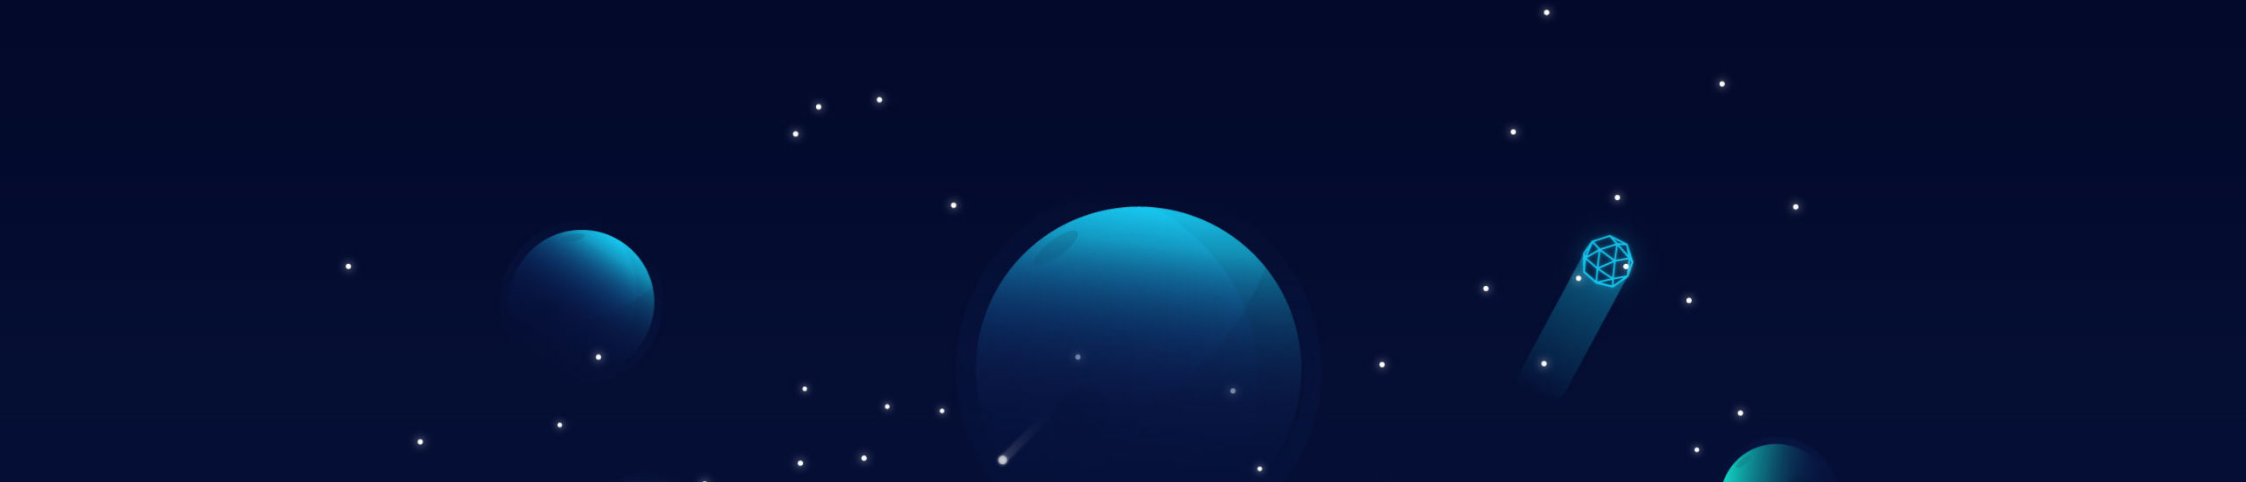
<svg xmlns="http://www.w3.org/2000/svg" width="2246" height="482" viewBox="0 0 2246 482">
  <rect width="100%" height="100%" fill="#fff"/>
  <image x="0" y="0" width="2246" height="482" href="img/1.png"/>
</svg>
